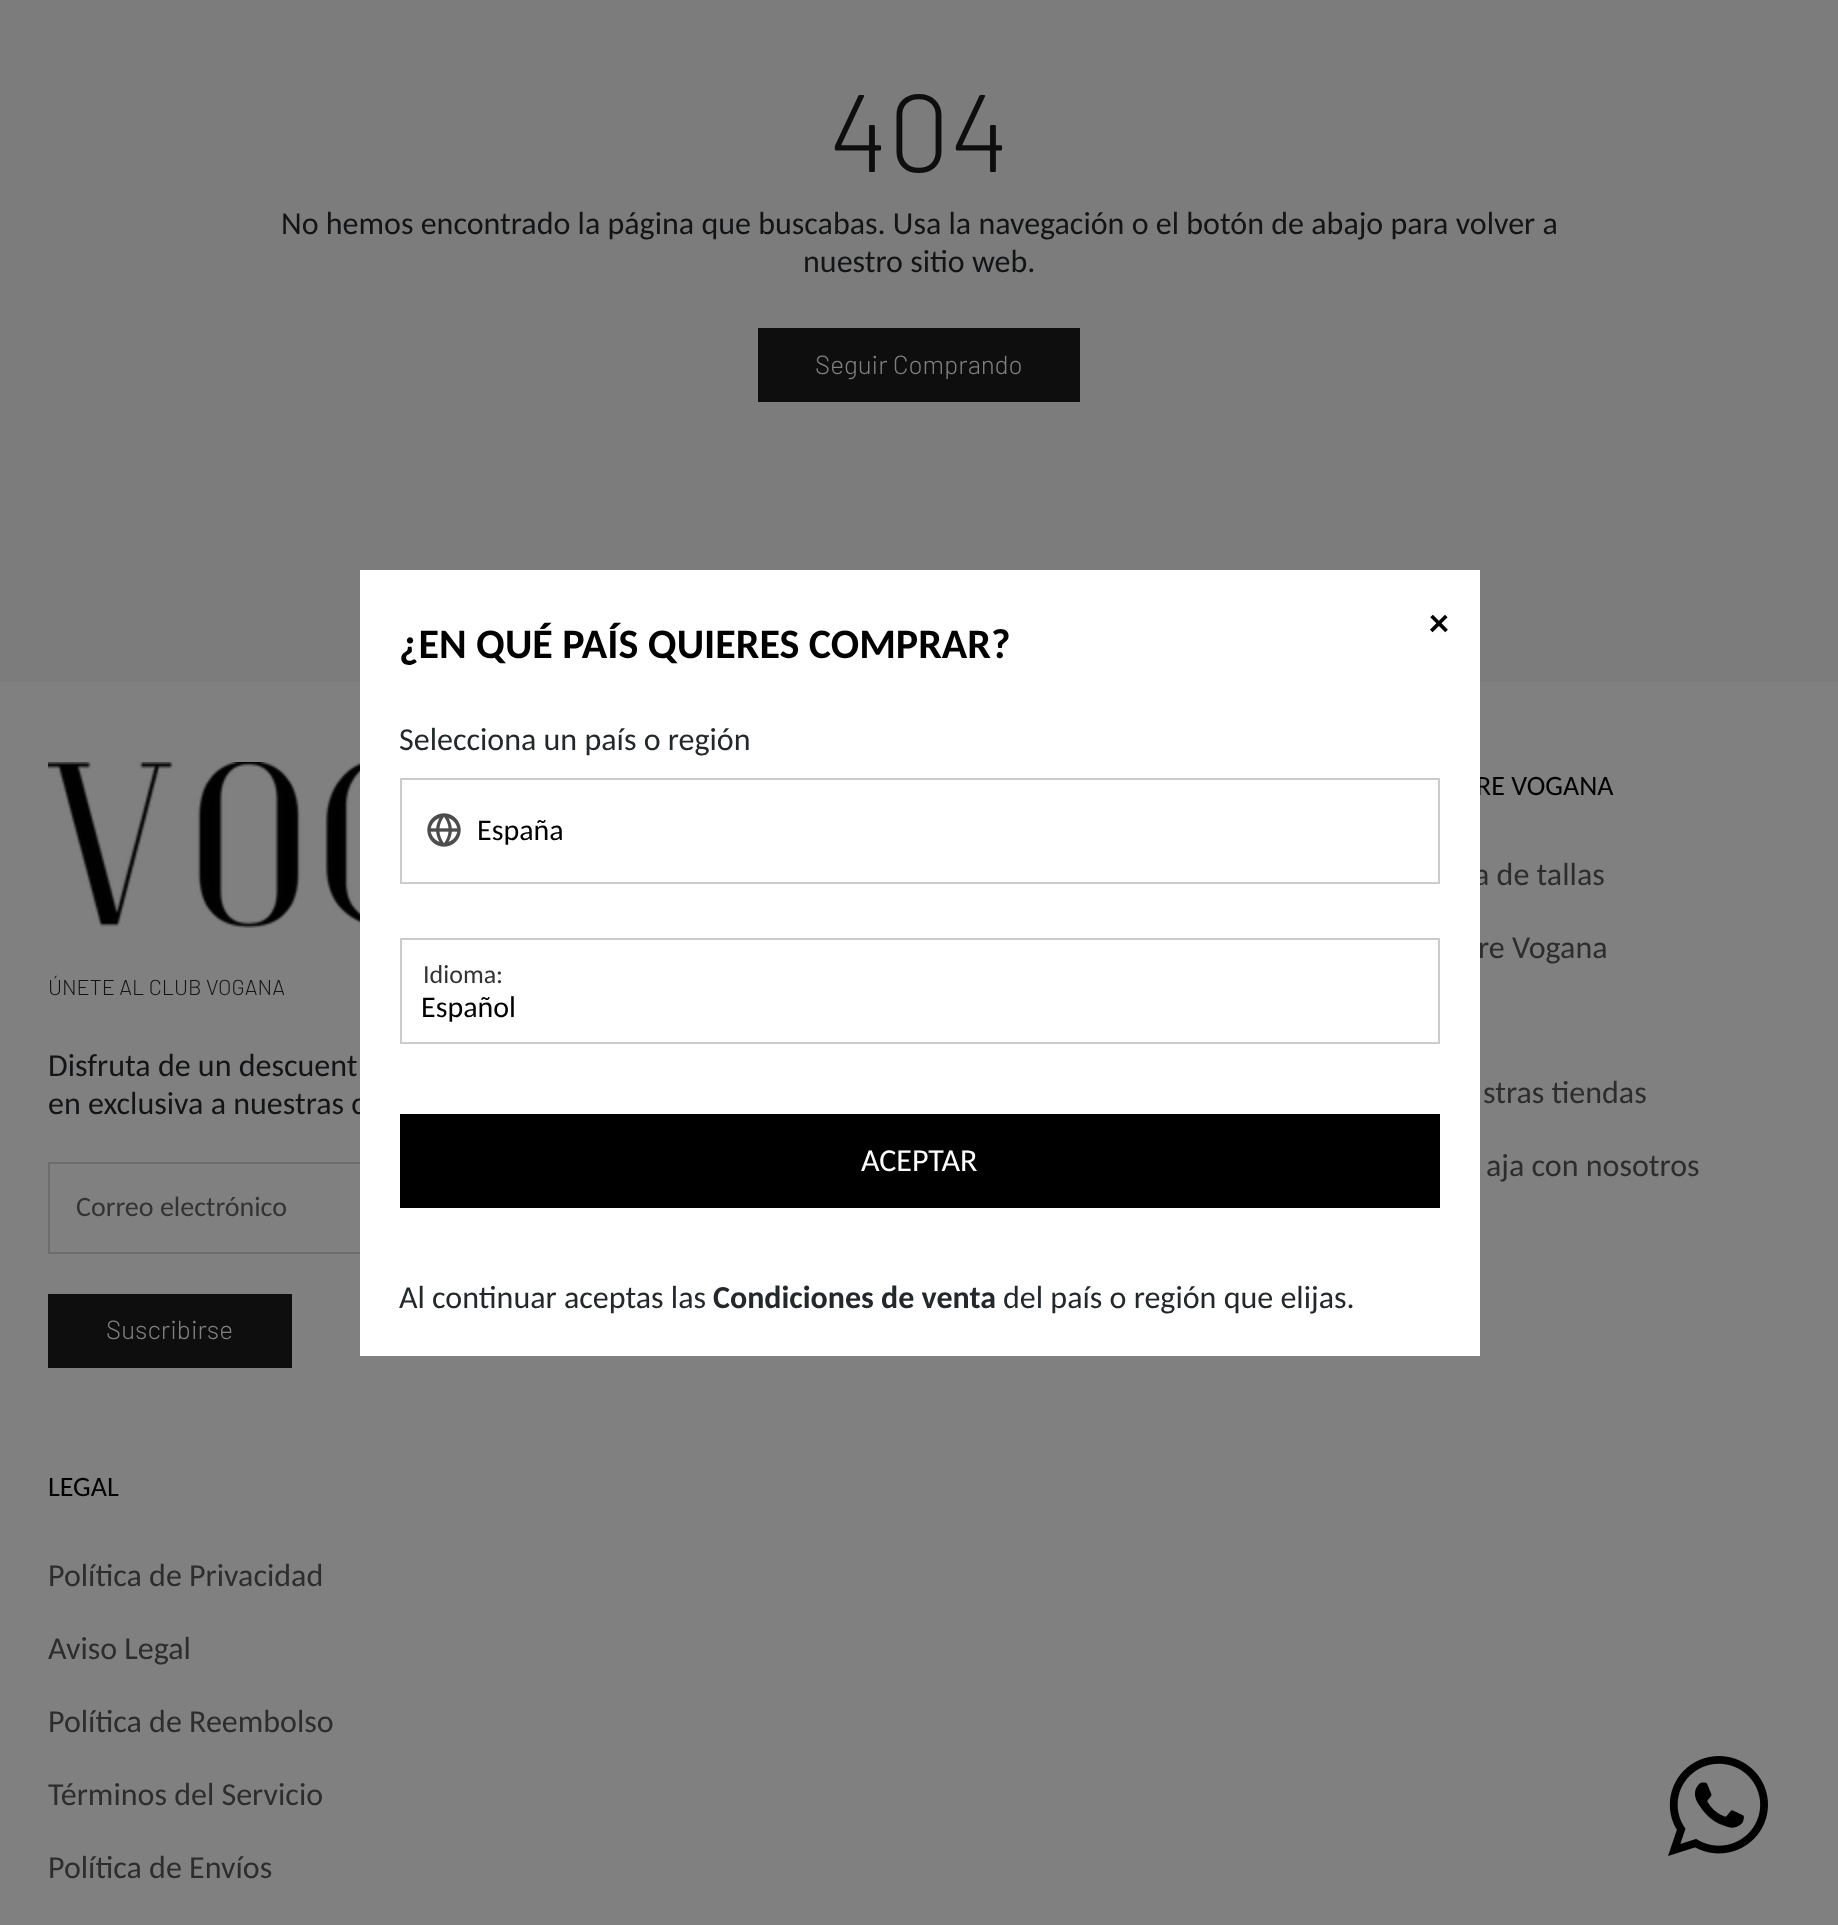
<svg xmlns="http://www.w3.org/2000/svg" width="1838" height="1925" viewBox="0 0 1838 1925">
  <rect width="100%" height="100%" fill="#808080"/>
  <path d="M0 0h1838v682H0z" fill="#7c7c7c"/>
  <path d="M759 329h320v72H759z" fill="#0e0e0e" stroke="#0e0e0e" stroke-width="2"/>
  <image x="48" y="762" width="312" height="166" href="img/1.png"/>
  <path d="M49 1163h820v90H49z" fill="none" stroke="#6d6d6d" stroke-width="2"/>
  <path d="M49 1295h242v72H49z" fill="#0e0e0e" stroke="#0e0e0e" stroke-width="2"/>
  <image x="1668" y="1756" width="100" height="100" href="img/3.png"/>
  <text x="829" y="172" font-family="Barlow" font-size="110" font-weight="300" fill="#0e0e0e">404</text>
  <g font-family="Carlito" font-size="32" fill="#121416">
    <text x="281" y="234">No hemos encontrado la página que buscabas. Usa la navegación o el botón de abajo para volver a</text>
    <text x="803" y="272">nuestro sitio web.</text>
  </g>
  <text x="815" y="374" font-family="Barlow" font-size="26" font-weight="300" fill="#808080">Seguir Comprando</text>
  <text x="48" y="995" font-family="Barlow" font-size="21.6" font-weight="300" fill="#121416">ÚNETE AL CLUB VOGANA</text>
  <g font-family="Carlito" font-size="32" fill="#121416">
    <text x="48" y="1076">Disfruta de un descuent</text>
    <text x="48" y="1114">en exclusiva a nuestras c</text>
  </g>
  <text x="76" y="1216" font-family="Carlito" font-size="28" fill="#333">Correo electrónico</text>
  <text x="106" y="1339" font-family="Barlow" font-size="26" font-weight="300" fill="#808080">Suscribirse</text>
  <text x="1476" y="795" font-family="Carlito" font-size="28" fill="#000">RE VOGANA</text>
  <g font-family="Carlito" font-size="32" fill="#2d2d2d">
    <text x="1474" y="885">a de tallas</text>
    <text x="1478" y="958">re Vogana</text>
    <text x="1483" y="1103">stras tiendas</text>
    <text x="1486" y="1176">aja con nosotros</text>
  </g>
  <text x="48" y="1496" font-family="Carlito" font-size="28" fill="#000">LEGAL</text>
  <g font-family="Carlito" font-size="32" fill="#2d2d2d">
    <text x="48" y="1586">Política de Privacidad</text>
    <text x="48" y="1659">Aviso Legal</text>
    <text x="48" y="1732">Política de Reembolso</text>
    <text x="48" y="1805">Términos del Servicio</text>
    <text x="48" y="1878">Política de Envíos</text>
  </g>
  <path d="M360 570h1120v786H360z" fill="#fff"/>
  <text x="399" y="658" font-family="Carlito" font-size="42" font-weight="bold" fill="#000">¿EN QUÉ PAÍS QUIERES COMPRAR?</text>
  <text x="1429" y="636" font-family="Carlito" font-size="40" font-weight="bold" fill="#000">×</text>
  <text x="399" y="750" font-family="Carlito" font-size="32" fill="#23282b">Selecciona un país o región</text>
  <path d="M401 779h1038v104H401z" fill="none" stroke="#ccc" stroke-width="2"/>
  <image x="427" y="813" width="34" height="34" href="img/2.png"/>
  <text x="477" y="840" font-family="Carlito" font-size="30" fill="#000">España</text>
  <path d="M401 939h1038v104H401z" fill="none" stroke="#ccc" stroke-width="2"/>
  <text x="423" y="983" font-family="Carlito" font-size="26" fill="#333">Idioma:</text>
  <text x="421" y="1017" font-family="Carlito" font-size="30" fill="#000">Español</text>
  <path d="M400 1114h1040v94H400z" fill="#000"/>
  <text x="861" y="1171" font-family="Carlito" font-size="32" fill="#fff">ACEPTAR</text>
  <text x="399" y="1308" font-family="Carlito" font-size="32" fill="#23282b">Al continuar aceptas las</text>
  <text x="713" y="1308" font-family="Carlito" font-size="32" font-weight="bold" fill="#23282b">Condiciones de venta</text>
  <text x="1003" y="1308" font-family="Carlito" font-size="32" fill="#23282b">del país o región que elijas.</text>
</svg>
